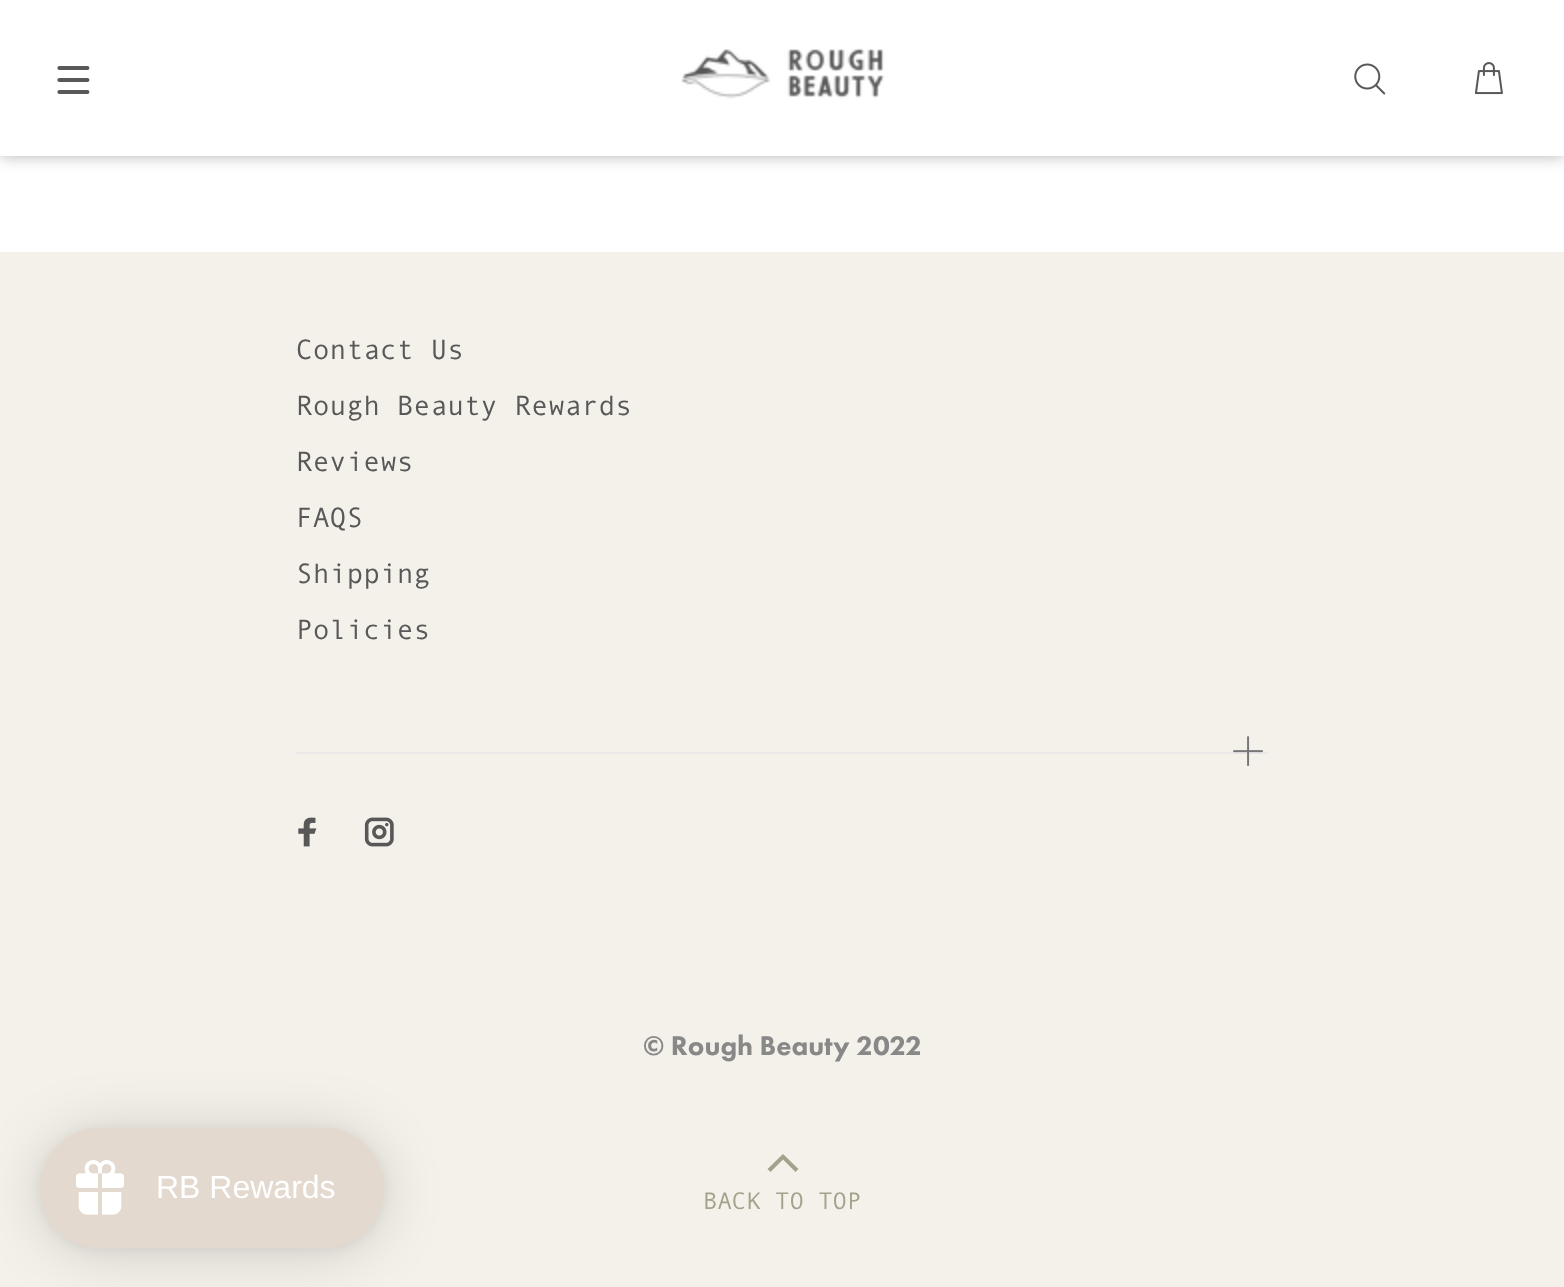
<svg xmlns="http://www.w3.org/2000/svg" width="1564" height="1287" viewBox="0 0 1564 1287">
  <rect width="100%" height="100%" fill="#fff"/>
  <path d="M0 0h1564v156H0z" fill="#0000004d" filter="blur(8px)"/>
  <path d="M0 0h1564v156H0z" fill="#fff"/>
  <image x="57" y="66" width="33" height="28" href="img/1.png"/>
  <image x="681" y="48" width="204" height="51" href="img/2.png"/>
  <image x="1354" y="63" width="32" height="32" href="img/3.png"/>
  <image x="1474" y="62" width="29" height="33" href="img/4.png"/>
  <path d="M0 252h1564v1035H0z" fill="#f4f1ea"/>
  <path d="M296 752h972v2H296z" fill="#e9e7e7"/>
  <image x="1233" y="736" width="30" height="31" href="img/5.png"/>
  <image x="298" y="817" width="19" height="30" href="img/6.png"/>
  <image x="364" y="817" width="30" height="30" href="img/7.png"/>
  <rect x="40" y="1132" width="344" height="120" rx="60" fill="#00000026" filter="blur(30px)"/>
  <rect x="40" y="1130" width="344" height="120" rx="60" fill="#0000000d" filter="blur(6px)"/>
  <rect x="40" y="1128" width="344" height="120" rx="60" fill="#e3d9cf"/>
  <image x="76" y="1160" width="48" height="55" href="img/8.png"/>
  <path d="M795.5 1172L783 1159.5L770.5 1172L767.5 1169L783 1154L798.5 1169Z" fill="#a3a38d"/>
  <g font-family="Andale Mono" font-size="28" fill="#585858">
    <text x="296" y="359">Contact Us</text>
    <text x="296" y="415">Rough Beauty Rewards</text>
    <text x="296" y="471">Reviews</text>
    <text x="296" y="527">FAQS</text>
    <text x="296" y="583">Shipping</text>
    <text x="296" y="639">Policies</text>
  </g>
  <text x="643" y="1055" font-family="Futura PT" font-size="28" font-weight="900" fill="#888">© Rough Beauty 2022</text>
  <text x="156" y="1198" font-family="Liberation Sans" font-size="32" fill="#fff">RB Rewards</text>
  <text x="703" y="1209" font-family="Andale Mono" font-size="24" fill="#a3a38d">BACK TO TOP</text>
</svg>
